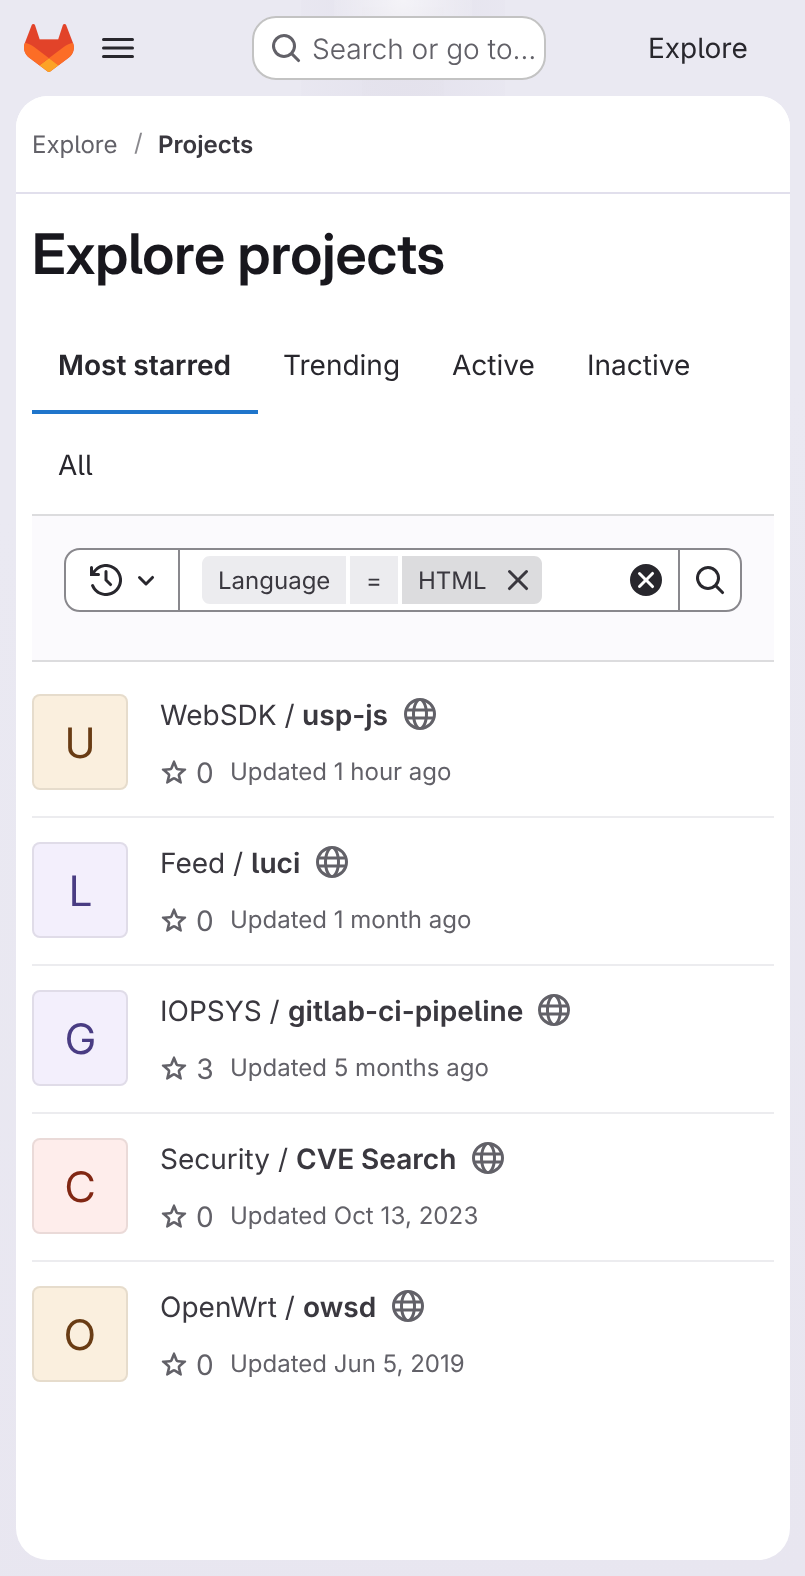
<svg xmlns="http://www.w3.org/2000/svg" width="805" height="1576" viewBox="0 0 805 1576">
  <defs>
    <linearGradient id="g1" gradientUnits="userSpaceOnUse" x1="550" y1="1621" x2="256" y2="-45"><stop offset="0" stop-color="#e8e6f0"/><stop offset="0.7" stop-color="#eae9f2"/></linearGradient>
    <radialGradient id="g2" gradientUnits="userSpaceOnUse" cx="0" cy="0" r="1" gradientTransform="matrix(403 0 0 1576 403 0)"><stop offset="0" stop-color="#e4e2ed"/><stop offset="0.35" stop-color="#e4e2ed" stop-opacity="0"/></radialGradient>
    <radialGradient id="g3" gradientUnits="userSpaceOnUse" cx="0" cy="0" r="1" gradientTransform="matrix(403 0 0 1576 403 0)"><stop offset="0" stop-color="#e4e2ec"/><stop offset="0.25" stop-color="#e4e2ec" stop-opacity="0"/></radialGradient>
    <radialGradient id="g4" gradientUnits="userSpaceOnUse" cx="403" cy="0" r="1627"><stop offset="0" stop-color="#fff" stop-opacity="0.6"/><stop offset="0.05" stop-color="#fff" stop-opacity="0"/></radialGradient>
  </defs>
  <rect width="100%" height="100%" fill="#fff"/>
  <path d="M0 0h805v1576H0z" fill="url(#g1)"/>
  <path d="M301 0h204v96H301z" fill="url(#g2)"/>
  <path d="M362 7h82v89H362z" fill="url(#g3)"/>
  <path d="M334 0h138v16H334z" fill="url(#g4)"/>
  <image x="24" y="24" width="50" height="48" href="img/1.png"/>
  <image x="102" y="38" width="32" height="20" href="img/2.png"/>
  <rect x="252" y="16" width="294" height="64" rx="24" fill="#fff"/>
  <rect x="253" y="17" width="292" height="62" rx="23" fill="none" stroke="#0505063d" stroke-width="2"/>
  <image x="272" y="34" width="29" height="29" href="img/3.png"/>
  <rect x="16" y="96" width="774" height="1464" rx="32" fill="#fff"/>
  <path d="M48 96H758C775.5 96 790 110.5 790 128V194H16V128C16 110.5 30.5 96 48 96Z" fill="#fff"/>
  <path d="M16 192h774v2H16z" fill="#e1dfec"/>
  <path d="M32 410h226v4H32z" fill="#1f75cb"/>
  <path d="M32 516h742v144H32z" fill="#fbfafd"/>
  <path d="M32 514h742v2H32z" fill="#dcdcde"/>
  <path d="M32 660h742v2H32z" fill="#dcdcde"/>
  <path d="M179 549h500v62H179z" fill="#fff" stroke="#89888d" stroke-width="2"/>
  <path d="M80 549H179V611H80C71.5 611 65 604.5 65 596V564C65 555.5 71.5 549 80 549Z" fill="#fff" stroke="#89888d" stroke-width="2"/>
  <image x="90" y="564" width="32" height="32" href="img/4.png"/>
  <image x="138" y="575" width="17" height="11" href="img/5.png"/>
  <path d="M210 556H346V604H210C205.5 604 202 600.5 202 596V564C202 559.5 205.5 556 210 556Z" fill="#ececef"/>
  <path d="M350 556h48v48H350z" fill="#ececef"/>
  <path d="M402 556H534C538.5 556 542 559.5 542 564V596C542 600.5 538.5 604 534 604H402Z" fill="#dcdcde"/>
  <image x="507" y="570" width="22" height="21" href="img/6.png"/>
  <image x="630" y="564" width="32" height="32" href="img/7.png"/>
  <path d="M679 549H726C734.5 549 741 555.5 741 564V596C741 604.5 734.5 611 726 611H679Z" fill="#fff" stroke="#89888d" stroke-width="2"/>
  <image x="696" y="566" width="29" height="29" href="img/8.png"/>
  <path d="M32 816h742v2H32z" fill="#ececef"/>
  <rect x="32" y="694" width="96" height="96" rx="8" fill="#faefde"/>
  <rect x="33" y="695" width="94" height="94" rx="7" fill="none" stroke="#05050614" stroke-width="2"/>
  <image x="404" y="698" width="32" height="32" href="img/9.png"/>
  <image x="161" y="760" width="26" height="24" href="img/10.png"/>
  <path d="M32 964h742v2H32z" fill="#ececef"/>
  <rect x="32" y="842" width="96" height="96" rx="8" fill="#f3effc"/>
  <rect x="33" y="843" width="94" height="94" rx="7" fill="none" stroke="#05050614" stroke-width="2"/>
  <image x="316" y="846" width="32" height="32" href="img/9.png"/>
  <image x="161" y="908" width="26" height="24" href="img/11.png"/>
  <path d="M32 1112h742v2H32z" fill="#ececef"/>
  <rect x="32" y="990" width="96" height="96" rx="8" fill="#f3effc"/>
  <rect x="33" y="991" width="94" height="94" rx="7" fill="none" stroke="#05050614" stroke-width="2"/>
  <image x="538" y="994" width="32" height="32" href="img/12.png"/>
  <image x="161" y="1056" width="26" height="24" href="img/11.png"/>
  <path d="M32 1260h742v2H32z" fill="#ececef"/>
  <rect x="32" y="1138" width="96" height="96" rx="8" fill="#feedeb"/>
  <rect x="33" y="1139" width="94" height="94" rx="7" fill="none" stroke="#05050614" stroke-width="2"/>
  <image x="472" y="1142" width="32" height="32" href="img/9.png"/>
  <image x="161" y="1204" width="26" height="24" href="img/11.png"/>
  <rect x="32" y="1286" width="96" height="96" rx="8" fill="#faefde"/>
  <rect x="33" y="1287" width="94" height="94" rx="7" fill="none" stroke="#05050614" stroke-width="2"/>
  <image x="392" y="1290" width="32" height="32" href="img/9.png"/>
  <image x="161" y="1352" width="26" height="24" href="img/11.png"/>
  <text x="312" y="59" font-family="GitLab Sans" font-size="28" font-weight="300" fill="#626168">Search or go to…</text>
  <text x="648" y="58" font-family="GitLab Sans" font-size="28" fill="#28272d">Explore</text>
  <text x="32" y="153" font-family="GitLab Sans" font-size="24" fill="#626168">Explore</text>
  <text x="134" y="151" font-family="GitLab Sans" font-size="24" fill="#89888d">/</text>
  <text x="158" y="153" font-family="'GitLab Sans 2'" font-size="24" font-weight="600" fill="#3a383f">Projects</text>
  <text x="32" y="274" font-family="GitLab Sans" font-size="56" font-weight="600" fill="#18171d">Explore projects</text>
  <text x="58" y="375" font-family="'GitLab Sans 2'" font-size="28" font-weight="600" fill="#28272d">Most starred</text>
  <g font-family="GitLab Sans" font-size="28" fill="#28272d">
    <text x="283" y="375">Trending</text>
    <text x="452" y="375">Active</text>
    <text x="587" y="375">Inactive</text>
    <text x="58" y="475">All</text>
  </g>
  <g font-family="GitLab Sans" font-size="24" fill="#3a383f">
    <text x="218" y="589">Language</text>
    <text x="366" y="589">=</text>
    <text x="418" y="589">HTML</text>
  </g>
  <text x="65" y="758" font-family="'GitLab Sans 2'" font-size="42" fill="#693c14">U</text>
  <text x="160" y="725" font-family="GitLab Sans" font-size="28" fill="#3a383f">WebSDK /</text>
  <text x="302" y="725" font-family="'GitLab Sans 2'" font-size="28" font-weight="600" fill="#3a383f">usp-js</text>
  <text x="196" y="783" font-family="GitLab Sans" font-size="28" fill="#626168">0</text>
  <text x="230" y="780" font-family="GitLab Sans" font-size="24" fill="#626168">Updated 1 hour ago</text>
  <text x="69" y="906" font-family="'GitLab Sans 2'" font-size="42" fill="#493c83">L</text>
  <text x="160" y="873" font-family="GitLab Sans" font-size="28" fill="#3a383f">Feed /</text>
  <text x="251" y="873" font-family="'GitLab Sans 2'" font-size="28" font-weight="600" fill="#3a383f">luci</text>
  <text x="196" y="931" font-family="GitLab Sans" font-size="28" fill="#626168">0</text>
  <text x="230" y="928" font-family="GitLab Sans" font-size="24" fill="#626168">Updated 1 month ago</text>
  <text x="65" y="1054" font-family="'GitLab Sans 2'" font-size="42" fill="#493c83">G</text>
  <text x="160" y="1021" font-family="GitLab Sans" font-size="28" fill="#3a383f">IOPSYS /</text>
  <text x="288" y="1021" font-family="'GitLab Sans 2'" font-size="28" font-weight="600" fill="#3a383f">gitlab-ci-pipeline</text>
  <text x="196" y="1079" font-family="GitLab Sans" font-size="28" fill="#626168">3</text>
  <text x="230" y="1076" font-family="GitLab Sans" font-size="24" fill="#626168">Updated 5 months ago</text>
  <text x="65" y="1202" font-family="'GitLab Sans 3'" font-size="42" fill="#812713">C</text>
  <text x="160" y="1169" font-family="GitLab Sans" font-size="28" fill="#3a383f">Security /</text>
  <text x="296" y="1169" font-family="'GitLab Sans 2'" font-size="28" font-weight="600" fill="#3a383f">CVE Search</text>
  <text x="196" y="1227" font-family="GitLab Sans" font-size="28" fill="#626168">0</text>
  <text x="230" y="1224" font-family="GitLab Sans" font-size="24" fill="#626168">Updated Oct 13, 2023</text>
  <text x="64" y="1350" font-family="'GitLab Sans 2'" font-size="42" fill="#693c14">O</text>
  <text x="160" y="1317" font-family="GitLab Sans" font-size="28" fill="#3a383f">OpenWrt /</text>
  <text x="303" y="1317" font-family="'GitLab Sans 2'" font-size="28" font-weight="600" fill="#3a383f">owsd</text>
  <text x="196" y="1375" font-family="GitLab Sans" font-size="28" fill="#626168">0</text>
  <text x="230" y="1372" font-family="GitLab Sans" font-size="24" fill="#626168">Updated Jun 5, 2019</text>
</svg>
